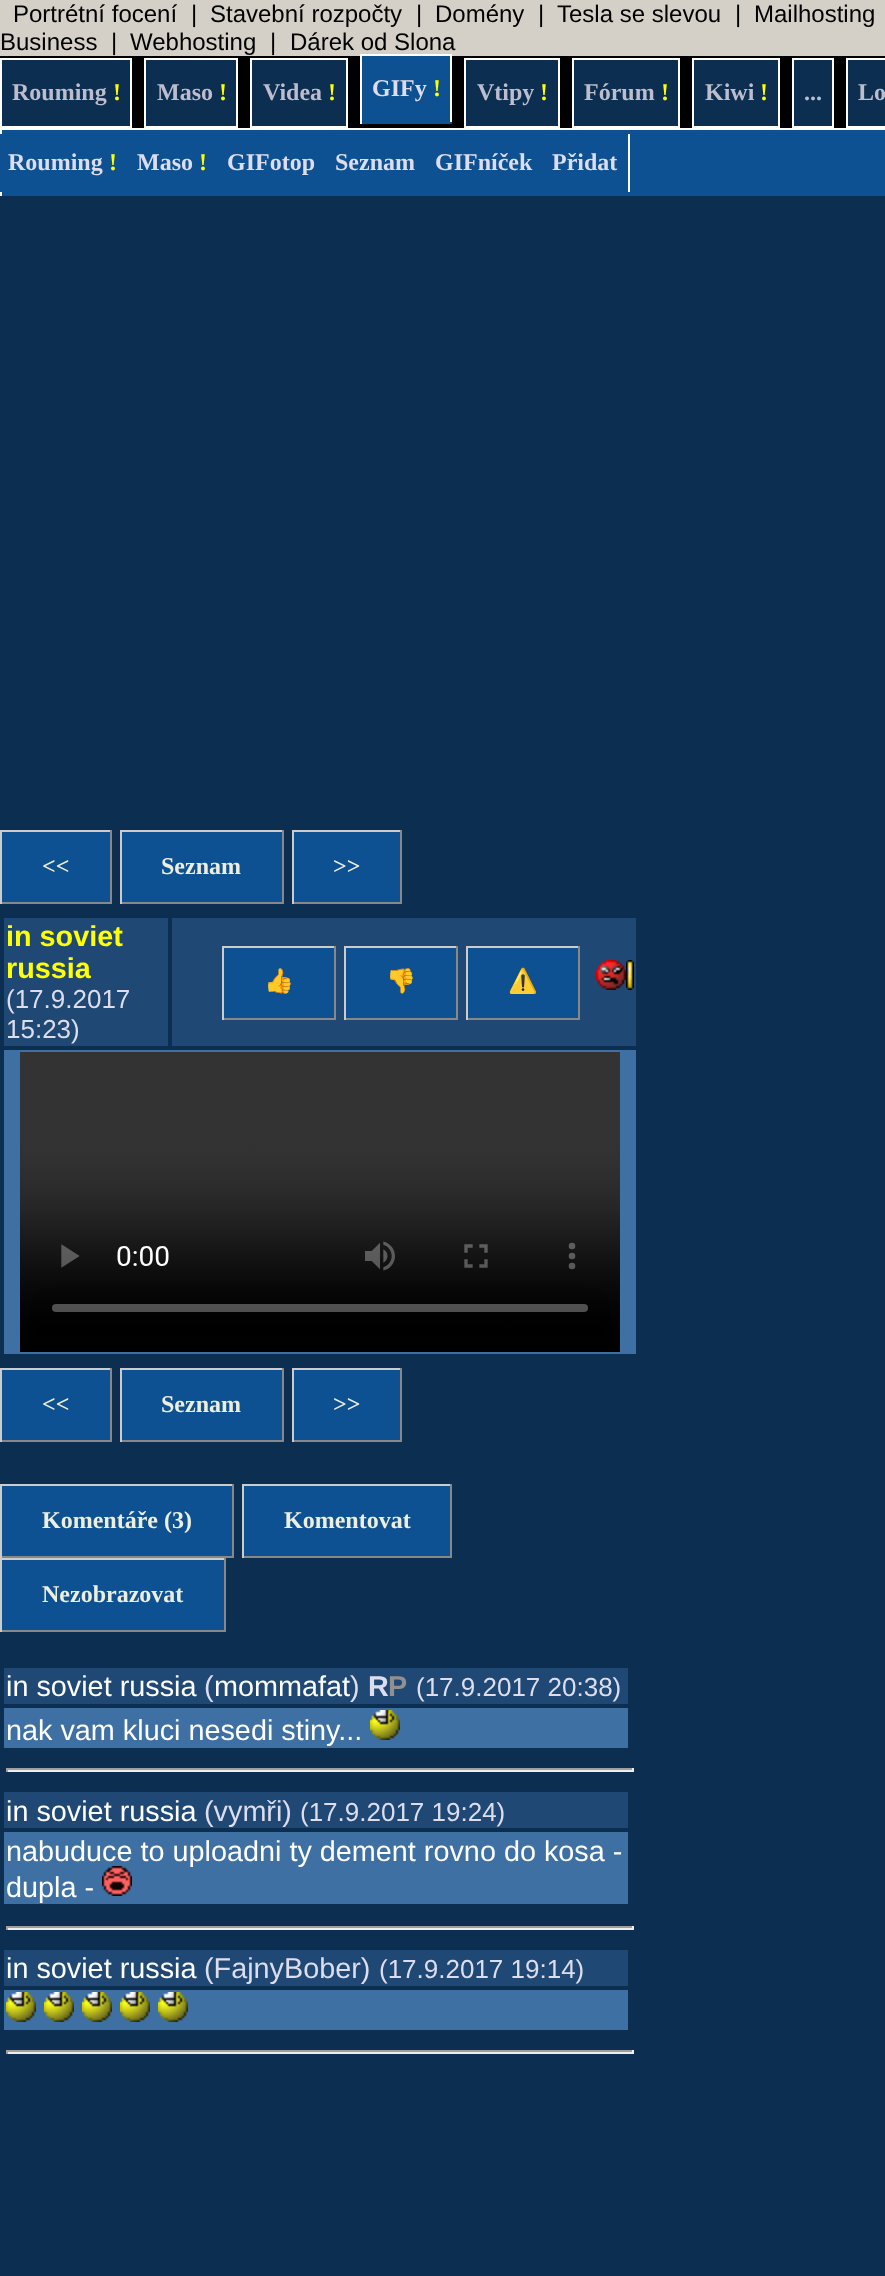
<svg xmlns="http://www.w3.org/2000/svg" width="885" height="2276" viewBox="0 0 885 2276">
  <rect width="100%" height="100%" fill="#0c2e51"/>
  <path d="M0 0h885v56H0z" fill="#d4d0c8"/>
  <path d="M0 56h885v72H0z" fill="#000"/>
  <path d="M0 128h885v2H0z" fill="#fff"/>
  <path d="M1 59h130v68H1z" fill="#0c2e51" stroke="#fff" stroke-width="2"/>
  <path d="M145 59h92v68H145z" fill="#0c2e51" stroke="#fff" stroke-width="2"/>
  <path d="M251 59h96v68H251z" fill="#0c2e51" stroke="#fff" stroke-width="2"/>
  <path d="M362 56h88v66H362z" fill="#0e5193"/>
  <path d="M360 54h92v2H360z" fill="#fff"/>
  <path d="M450 54h2v70H450z" fill="#fff"/>
  <path d="M360 122h92v2H360z" fill="#0e5193"/>
  <path d="M360 54h2v70H360z" fill="#fff"/>
  <path d="M465 59h94v68H465z" fill="#0c2e51" stroke="#fff" stroke-width="2"/>
  <path d="M573 59h106v68H573z" fill="#0c2e51" stroke="#fff" stroke-width="2"/>
  <path d="M693 59h86v68H693z" fill="#0c2e51" stroke="#fff" stroke-width="2"/>
  <path d="M793 59h40v68H793z" fill="#0c2e51" stroke="#fff" stroke-width="2"/>
  <path d="M847 59h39v68H847z" fill="#0c2e51" stroke="#fff" stroke-width="2"/>
  <path d="M2 130h883v66H2z" fill="#0e5193"/>
  <path d="M0 130h2v66H0z" fill="#fff"/>
  <path d="M0 134h2v58H0z" fill="#0e5193"/>
  <path d="M628 134h2v58H628z" fill="#fff"/>
  <path d="M2 832h108v70H2z" fill="#0e5193"/>
  <path d="M0 830h112v2H0z" fill="#ccc"/>
  <path d="M110 830h2v74H110z" fill="#888"/>
  <path d="M0 902h112v2H0z" fill="#888"/>
  <path d="M0 830h2v74H0z" fill="#ccc"/>
  <path d="M122 832h160v70H122z" fill="#0e5193"/>
  <path d="M120 830h164v2H120z" fill="#ccc"/>
  <path d="M282 830h2v74H282z" fill="#888"/>
  <path d="M120 902h164v2H120z" fill="#888"/>
  <path d="M120 830h2v74H120z" fill="#ccc"/>
  <path d="M294 832h106v70H294z" fill="#0e5193"/>
  <path d="M292 830h110v2H292z" fill="#ccc"/>
  <path d="M400 830h2v74H400z" fill="#888"/>
  <path d="M292 902h110v2H292z" fill="#888"/>
  <path d="M292 830h2v74H292z" fill="#ccc"/>
  <path d="M4 918h164v128H4z" fill="#1f4974"/>
  <path d="M172 918h464v128H172z" fill="#1f4974"/>
  <path d="M224 948h110v70H224z" fill="#0e5193"/>
  <path d="M222 946h114v2H222z" fill="#ccc"/>
  <path d="M334 946h2v74H334z" fill="#888"/>
  <path d="M222 1018h114v2H222z" fill="#888"/>
  <path d="M222 946h2v74H222z" fill="#ccc"/>
  <path d="M346 948h110v70H346z" fill="#0e5193"/>
  <path d="M344 946h114v2H344z" fill="#ccc"/>
  <path d="M456 946h2v74H456z" fill="#888"/>
  <path d="M344 1018h114v2H344z" fill="#888"/>
  <path d="M344 946h2v74H344z" fill="#ccc"/>
  <path d="M468 948h110v70H468z" fill="#0e5193"/>
  <path d="M466 946h114v2H466z" fill="#ccc"/>
  <path d="M578 946h2v74H578z" fill="#888"/>
  <path d="M466 1018h114v2H466z" fill="#888"/>
  <path d="M466 946h2v74H466z" fill="#ccc"/>
  <image x="596" y="960" width="30" height="30" href="img/1.png"/>
  <image x="626" y="960" width="8" height="30" href="img/2.png"/>
  <path d="M4 1050h632v304H4z" fill="#3f70a3"/>
  <image x="20" y="1052" width="600" height="300" href="img/3.png"/>
  <path d="M2 1370h108v70H2z" fill="#0e5193"/>
  <path d="M0 1368h112v2H0z" fill="#ccc"/>
  <path d="M110 1368h2v74H110z" fill="#888"/>
  <path d="M0 1440h112v2H0z" fill="#888"/>
  <path d="M0 1368h2v74H0z" fill="#ccc"/>
  <path d="M122 1370h160v70H122z" fill="#0e5193"/>
  <path d="M120 1368h164v2H120z" fill="#ccc"/>
  <path d="M282 1368h2v74H282z" fill="#888"/>
  <path d="M120 1440h164v2H120z" fill="#888"/>
  <path d="M120 1368h2v74H120z" fill="#ccc"/>
  <path d="M294 1370h106v70H294z" fill="#0e5193"/>
  <path d="M292 1368h110v2H292z" fill="#ccc"/>
  <path d="M400 1368h2v74H400z" fill="#888"/>
  <path d="M292 1440h110v2H292z" fill="#888"/>
  <path d="M292 1368h2v74H292z" fill="#ccc"/>
  <path d="M2 1486h230v70H2z" fill="#0e5193"/>
  <path d="M0 1484h234v2H0z" fill="#ccc"/>
  <path d="M232 1484h2v74H232z" fill="#888"/>
  <path d="M0 1556h234v2H0z" fill="#888"/>
  <path d="M0 1484h2v74H0z" fill="#ccc"/>
  <path d="M244 1486h206v70H244z" fill="#0e5193"/>
  <path d="M242 1484h210v2H242z" fill="#ccc"/>
  <path d="M450 1484h2v74H450z" fill="#888"/>
  <path d="M242 1556h210v2H242z" fill="#888"/>
  <path d="M242 1484h2v74H242z" fill="#ccc"/>
  <path d="M2 1560h222v70H2z" fill="#0e5193"/>
  <path d="M0 1558h226v2H0z" fill="#ccc"/>
  <path d="M224 1558h2v74H224z" fill="#888"/>
  <path d="M0 1630h226v2H0z" fill="#888"/>
  <path d="M0 1558h2v74H0z" fill="#ccc"/>
  <path d="M4 1668h624v36H4z" fill="#1f4974"/>
  <path d="M4 1708h624v40H4z" fill="#3f70a3"/>
  <image x="370" y="1710" width="30" height="30" href="img/4.png"/>
  <path d="M6 1768h628v2H6z" fill="#9f9f9f"/>
  <path d="M632 1768h2v4H632z" fill="#eee"/>
  <path d="M6 1770h628v2H6z" fill="#eee"/>
  <path d="M6 1768h2v4H6z" fill="#9f9f9f"/>
  <path d="M4 1792h624v36H4z" fill="#1f4974"/>
  <path d="M4 1832h624v72H4z" fill="#3f70a3"/>
  <path d="M6 1926h628v2H6z" fill="#9f9f9f"/>
  <path d="M632 1926h2v4H632z" fill="#eee"/>
  <path d="M6 1928h628v2H6z" fill="#eee"/>
  <path d="M6 1926h2v4H6z" fill="#9f9f9f"/>
  <path d="M4 1950h624v36H4z" fill="#1f4974"/>
  <path d="M4 1990h624v40H4z" fill="#3f70a3"/>
  <image x="6" y="1992" width="30" height="30" href="img/4.png"/>
  <image x="44" y="1992" width="30" height="30" href="img/4.png"/>
  <image x="82" y="1992" width="30" height="30" href="img/4.png"/>
  <image x="120" y="1992" width="30" height="30" href="img/4.png"/>
  <image x="158" y="1992" width="30" height="30" href="img/4.png"/>
  <path d="M6 2050h628v2H6z" fill="#9f9f9f"/>
  <path d="M632 2050h2v4H632z" fill="#eee"/>
  <path d="M6 2052h628v2H6z" fill="#eee"/>
  <path d="M6 2050h2v4H6z" fill="#9f9f9f"/>
  <g font-family="Liberation Sans" font-size="24" fill="#000">
    <text x="13" y="22">Portrétní focení</text>
    <text x="191" y="22">|</text>
    <text x="210" y="22">Stavební rozpočty</text>
    <text x="416" y="22">|</text>
    <text x="435" y="22">Domény</text>
    <text x="538" y="22">|</text>
    <text x="557" y="22">Tesla se slevou</text>
    <text x="735" y="22">|</text>
    <text x="754" y="22">Mailhosting</text>
    <text x="0" y="50">Business</text>
    <text x="111" y="50">|</text>
    <text x="130" y="50">Webhosting</text>
    <text x="270" y="50">|</text>
    <text x="290" y="50">Dárek od Slona</text>
  </g>
  <text x="12" y="100" font-family="Liberation Serif" font-size="24" font-weight="bold" fill="#bdbdce">Rouming</text>
  <text x="113" y="100" font-family="Liberation Serif" font-size="24" font-weight="bold" fill="#ff0">!</text>
  <text x="157" y="100" font-family="Liberation Serif" font-size="24" font-weight="bold" fill="#bdbdce">Maso</text>
  <text x="219" y="100" font-family="Liberation Serif" font-size="24" font-weight="bold" fill="#ff0">!</text>
  <text x="263" y="100" font-family="Liberation Serif" font-size="24" font-weight="bold" fill="#bdbdce">Videa</text>
  <text x="328" y="100" font-family="Liberation Serif" font-size="24" font-weight="bold" fill="#ff0">!</text>
  <text x="372" y="96" font-family="Liberation Serif" font-size="24" font-weight="bold" fill="#dde">GIFy</text>
  <text x="433" y="96" font-family="Liberation Serif" font-size="24" font-weight="bold" fill="#ff0">!</text>
  <text x="477" y="100" font-family="Liberation Serif" font-size="24" font-weight="bold" fill="#bdbdce">Vtipy</text>
  <text x="540" y="100" font-family="Liberation Serif" font-size="24" font-weight="bold" fill="#ff0">!</text>
  <text x="584" y="100" font-family="Liberation Serif" font-size="24" font-weight="bold" fill="#bdbdce">Fórum</text>
  <text x="661" y="100" font-family="Liberation Serif" font-size="24" font-weight="bold" fill="#ff0">!</text>
  <text x="705" y="100" font-family="Liberation Serif" font-size="24" font-weight="bold" fill="#bdbdce">Kiwi</text>
  <text x="760" y="100" font-family="Liberation Serif" font-size="24" font-weight="bold" fill="#ff0">!</text>
  <g font-family="Liberation Serif" font-size="24" font-weight="bold" fill="#bdbdce">
    <text x="804" y="100">...</text>
    <text x="858" y="100">Lo</text>
  </g>
  <text x="8" y="170" font-family="Liberation Serif" font-size="24" font-weight="bold" fill="#dde">Rouming</text>
  <text x="109" y="170" font-family="Liberation Serif" font-size="24" font-weight="bold" fill="#ff0">!</text>
  <text x="137" y="170" font-family="Liberation Serif" font-size="24" font-weight="bold" fill="#dde">Maso</text>
  <text x="199" y="170" font-family="Liberation Serif" font-size="24" font-weight="bold" fill="#ff0">!</text>
  <g font-family="Liberation Serif" font-size="24" font-weight="bold" fill="#dde">
    <text x="227" y="170">GIFotop</text>
    <text x="335" y="170">Seznam</text>
    <text x="435" y="170">GIFníček</text>
    <text x="552" y="170">Přidat</text>
  </g>
  <g font-family="Liberation Serif" font-size="24" font-weight="bold" fill="#eed">
    <text x="42" y="874">&lt;&lt;</text>
    <text x="161" y="874">Seznam</text>
    <text x="333" y="874">&gt;&gt;</text>
  </g>
  <g font-family="Liberation Sans" font-size="28.8" font-weight="bold" fill="#ff0">
    <text x="6" y="946">in soviet</text>
    <text x="6" y="978">russia</text>
  </g>
  <g font-family="Liberation Sans" font-size="26" fill="#dde">
    <text x="6" y="1008">(17.9.2017</text>
    <text x="6" y="1038">15:23)</text>
  </g>
  <text x="264" y="989" font-family="Noto Color Emoji" font-size="24" font-weight="bold" fill="#0c0">👍</text>
  <text x="386" y="989" font-family="Noto Color Emoji" font-size="24" font-weight="bold" fill="#f00">👎</text>
  <text x="508" y="989" font-family="Noto Color Emoji" font-size="24" font-weight="bold" fill="#000">⚠️</text>
  <g font-family="Liberation Serif" font-size="24" font-weight="bold" fill="#eed">
    <text x="42" y="1412">&lt;&lt;</text>
    <text x="161" y="1412">Seznam</text>
    <text x="333" y="1412">&gt;&gt;</text>
    <text x="42" y="1528">Komentáře (3)</text>
    <text x="284" y="1528">Komentovat</text>
    <text x="42" y="1602">Nezobrazovat</text>
  </g>
  <text x="6" y="1696" font-family="Liberation Sans" font-size="28.8" fill="#fefeff">in soviet russia</text>
  <text x="204" y="1696" font-family="Liberation Sans" font-size="28.8" fill="#dde">(</text>
  <text x="214" y="1696" font-family="Liberation Sans" font-size="28.8" fill="#fefeff">mommafat</text>
  <text x="350" y="1696" font-family="Liberation Sans" font-size="28.8" fill="#dde">)</text>
  <text x="368" y="1696" font-family="Liberation Sans" font-size="28.8" font-weight="bold" fill="#dde">R</text>
  <text x="388" y="1696" font-family="Liberation Sans" font-size="28.8" font-weight="bold" fill="#909090">P</text>
  <text x="416" y="1696" font-family="Liberation Sans" font-size="26" fill="#dde">(17.9.2017 20:38)</text>
  <g font-family="Liberation Sans" font-size="28.8" fill="#fefeff">
    <text x="6" y="1740">nak vam kluci nesedi stiny...</text>
    <text x="6" y="1821">in soviet russia</text>
  </g>
  <text x="204" y="1821" font-family="Liberation Sans" font-size="28.8" fill="#dde">(vymři)</text>
  <text x="300" y="1821" font-family="Liberation Sans" font-size="26" fill="#dde">(17.9.2017 19:24)</text>
  <g font-family="Liberation Sans" font-size="28.8" fill="#fefeff">
    <text x="6" y="1861">nabuduce to uploadni ty dement rovno do kosa -</text>
    <text x="6" y="1897">dupla -</text>
  </g>
  <image x="102" y="1866" width="30" height="30" href="img/5.png"/>
  <text x="6" y="1978" font-family="Liberation Sans" font-size="28.8" fill="#fefeff">in soviet russia</text>
  <text x="204" y="1978" font-family="Liberation Sans" font-size="28.8" fill="#dde">(FajnyBober)</text>
  <text x="379" y="1978" font-family="Liberation Sans" font-size="26" fill="#dde">(17.9.2017 19:14)</text>
</svg>
